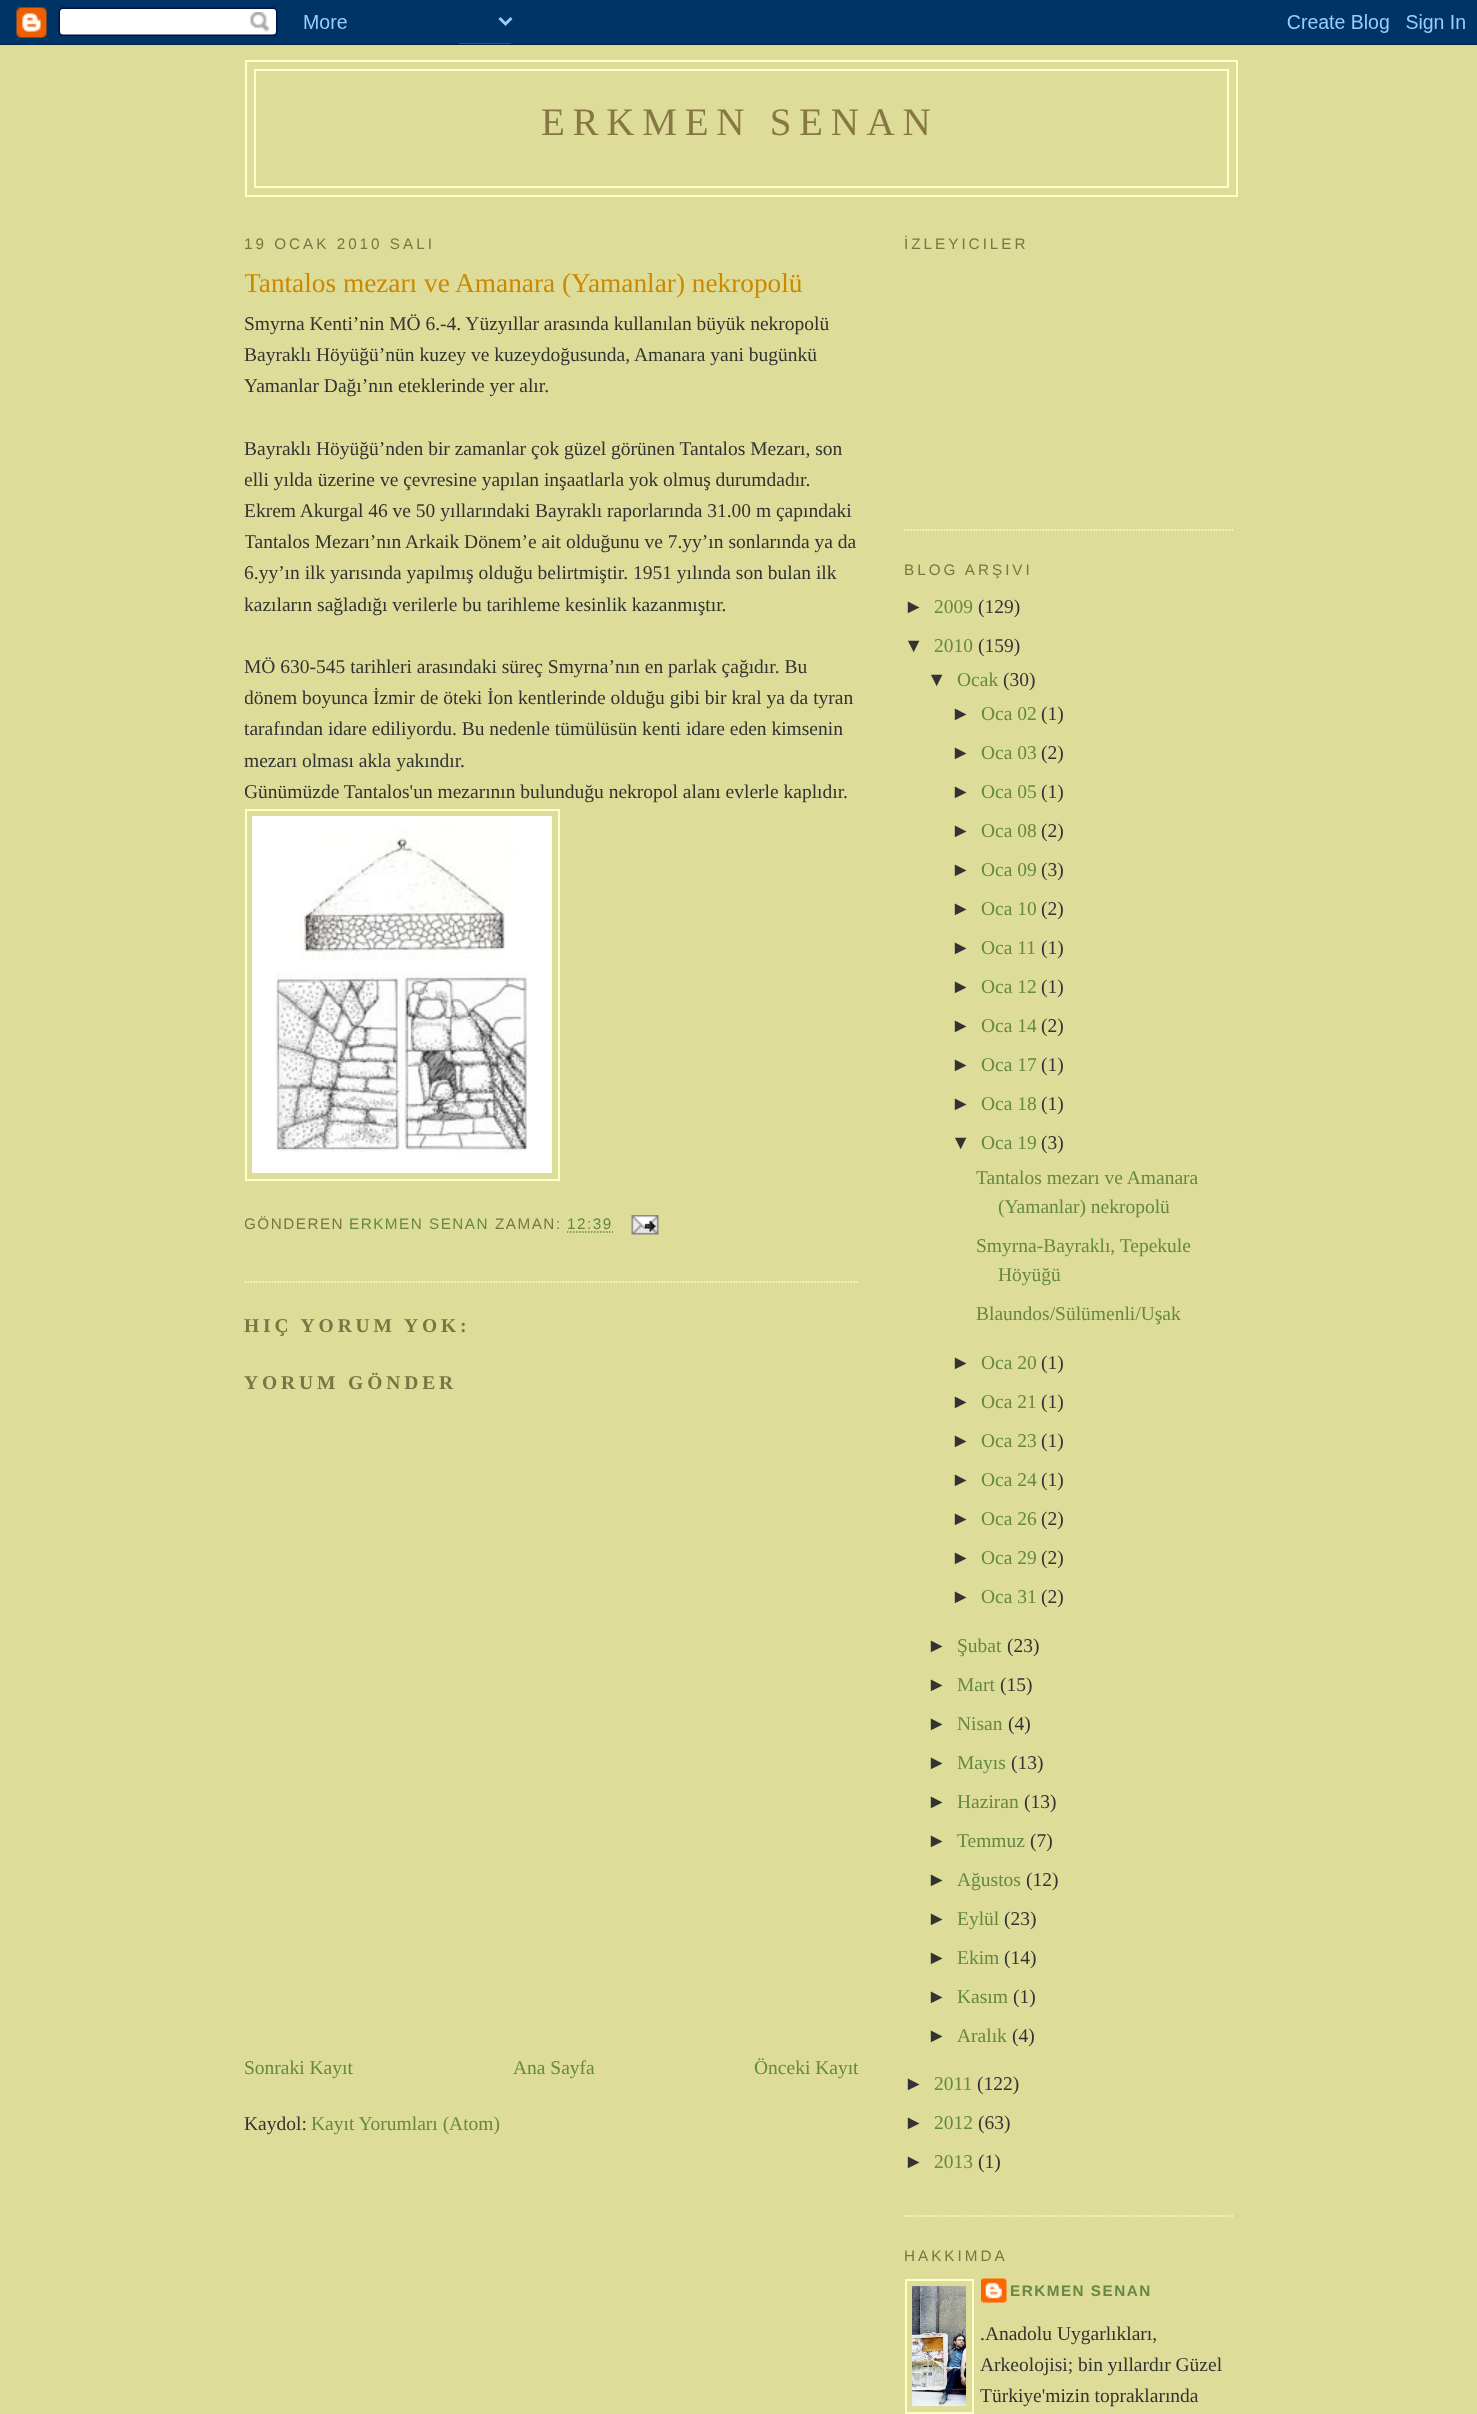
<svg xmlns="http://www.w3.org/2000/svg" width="1477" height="2414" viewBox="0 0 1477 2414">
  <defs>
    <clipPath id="clip1"><path d="M245 212h615v1995H245z"/></clipPath>
  </defs>
  <rect width="100%" height="100%" fill="#dd9"/>
  <image x="0" y="0" width="1477" height="45" href="img/1.png"/>
  <path d="M246 61h991v135H246z" fill="none" stroke="#ffc" stroke-width="2"/>
  <path d="M255 70h973v117H255z" fill="none" stroke="#ffc" stroke-width="2"/>
  <path d="M244.5 1282H859.5" fill="none" stroke="#ffc" stroke-width="1.5" stroke-dasharray="1.5 1.5"/>
  <path d="M246 810h313v370H246z" fill="none" stroke="#ffc" stroke-width="2"/>
  <image x="252" y="816" width="300" height="357" href="img/2.png"/>
  <path d="M567 1232H613" fill="none" stroke="#684" stroke-width="1.5" stroke-dasharray="1.5 1.5"/>
  <image x="631" y="1215" width="28" height="20" href="img/3.png"/>
  <path d="M904.5 530H1234.5" fill="none" stroke="#ffc" stroke-width="1.5" stroke-dasharray="1.5 1.5"/>
  <path d="M904.5 2216H1234.5" fill="none" stroke="#ffc" stroke-width="1.5" stroke-dasharray="1.5 1.5"/>
  <path d="M906 2280h67v133H906z" fill="none" stroke="#ffc" stroke-width="2"/>
  <image x="912" y="2286" width="54" height="120" href="img/4.png"/>
  <image x="981" y="2278" width="26" height="25" href="img/5.png"/>
  <text x="541" y="135" font-family="Liberation Serif" font-size="39" letter-spacing="7.75" fill="#874">ERKMEN SENAN</text>
  <text x="244" y="249" font-family="Liberation Sans" font-size="15.25" letter-spacing="3" fill="#774">19 OCAK 2010 SALI</text>
  <g clip-path="url(#clip1)">
    <text x="244" y="292" font-family="Liberation Serif" font-size="27.3" fill="#c80">Tantalos mezarı ve Amanara (Yamanlar) nekropolü</text>
  </g>
  <g font-family="Liberation Serif" font-size="19.5" fill="#333">
    <text x="244" y="330">Smyrna Kenti’nin MÖ 6.-4. Yüzyıllar arasında kullanılan büyük nekropolü</text>
    <text x="244" y="361">Bayraklı Höyüğü’nün kuzey ve kuzeydoğusunda, Amanara yani bugünkü</text>
    <text x="244" y="392">Yamanlar Dağı’nın eteklerinde yer alır.</text>
    <text x="244" y="455">Bayraklı Höyüğü’nden bir zamanlar çok güzel görünen Tantalos Mezarı, son</text>
  </g>
  <g clip-path="url(#clip1)">
    <text x="244" y="486" font-family="Liberation Serif" font-size="19.5" fill="#333">elli yılda üzerine ve çevresine yapılan inşaatlarla yok olmuş durumdadır.</text>
  </g>
  <text x="244" y="517" font-family="Liberation Serif" font-size="19.5" fill="#333">Ekrem Akurgal 46 ve 50 yıllarındaki Bayraklı raporlarında 31.00 m çapındaki</text>
  <g clip-path="url(#clip1)">
    <g font-family="Liberation Serif" font-size="19.5" fill="#333">
      <text x="244" y="548">Tantalos Mezarı’nın Arkaik Dönem’e ait olduğunu ve 7.yy’ın sonlarında ya da</text>
      <text x="244" y="579">6.yy’ın ilk yarısında yapılmış olduğu belirtmiştir. 1951 yılında son bulan ilk</text>
    </g>
  </g>
  <g font-family="Liberation Serif" font-size="19.5" fill="#333">
    <text x="244" y="611">kazıların sağladığı verilerle bu tarihleme kesinlik kazanmıştır.</text>
    <text x="244" y="673">MÖ 630-545 tarihleri arasındaki süreç Smyrna’nın en parlak çağıdır. Bu</text>
  </g>
  <g clip-path="url(#clip1)">
    <text x="244" y="704" font-family="Liberation Serif" font-size="19.5" fill="#333">dönem boyunca İzmir de öteki İon kentlerinde olduğu gibi bir kral ya da tyran</text>
  </g>
  <g font-family="Liberation Serif" font-size="19.5" fill="#333">
    <text x="244" y="735">tarafından idare ediliyordu. Bu nedenle tümülüsün kenti idare eden kimsenin</text>
    <text x="244" y="767">mezarı olması akla yakındır.</text>
  </g>
  <g clip-path="url(#clip1)">
    <text x="244" y="798" font-family="Liberation Serif" font-size="19.5" fill="#333">Günümüzde Tantalos'un mezarının bulunduğu nekropol alanı evlerle kaplıdır.</text>
    <text x="244" y="1229" font-family="Liberation Sans" font-size="15.25" letter-spacing="1.5" fill="#774">GÖNDEREN</text>
  </g>
  <text x="349" y="1229" font-family="Liberation Sans" font-size="15.25" letter-spacing="1.5" fill="#684">ERKMEN SENAN</text>
  <text x="495" y="1229" font-family="Liberation Sans" font-size="15.25" letter-spacing="1.5" fill="#774">ZAMAN:</text>
  <text x="567" y="1229" font-family="Liberation Sans" font-size="15.25" letter-spacing="1.5" fill="#684">12:39</text>
  <g font-family="Liberation Serif" font-size="19.5" font-weight="bold" letter-spacing="3.9" fill="#774">
    <text x="244" y="1332">HIÇ YORUM YOK:</text>
    <text x="244" y="1389">YORUM GÖNDER</text>
  </g>
  <g font-family="Liberation Serif" font-size="19.5" fill="#684">
    <text x="244" y="2074">Sonraki Kayıt</text>
    <text x="513" y="2074">Ana Sayfa</text>
    <text x="754" y="2074">Önceki Kayıt</text>
  </g>
  <text x="244" y="2130" font-family="Liberation Serif" font-size="19.5" fill="#333">Kaydol:</text>
  <text x="311" y="2130" font-family="Liberation Serif" font-size="19.5" fill="#684">Kayıt Yorumları (Atom)</text>
  <g font-family="Liberation Sans" font-size="15.25" letter-spacing="3" fill="#774">
    <text x="904" y="249">İZLEYICILER</text>
    <text x="904" y="575">BLOG ARŞIVI</text>
  </g>
  <text x="904" y="613" font-family="Liberation Sans" font-size="19.5" fill="#333">►</text>
  <text x="934" y="613" font-family="Liberation Serif" font-size="19.5" fill="#684">2009</text>
  <text x="978" y="613" font-family="Liberation Serif" font-size="19.5" fill="#333">(129)</text>
  <text x="904" y="652" font-family="Liberation Sans" font-size="19.5" fill="#333">▼</text>
  <text x="934" y="652" font-family="Liberation Serif" font-size="19.5" fill="#684">2010</text>
  <text x="978" y="652" font-family="Liberation Serif" font-size="19.5" fill="#333">(159)</text>
  <text x="927" y="686" font-family="Liberation Sans" font-size="19.5" fill="#333">▼</text>
  <text x="957" y="686" font-family="Liberation Serif" font-size="19.5" fill="#684">Ocak</text>
  <text x="1003" y="686" font-family="Liberation Serif" font-size="19.5" fill="#333">(30)</text>
  <text x="951" y="720" font-family="Liberation Sans" font-size="19.5" fill="#333">►</text>
  <text x="981" y="720" font-family="Liberation Serif" font-size="19.5" fill="#684">Oca 02</text>
  <text x="1041" y="720" font-family="Liberation Serif" font-size="19.5" fill="#333">(1)</text>
  <text x="951" y="759" font-family="Liberation Sans" font-size="19.5" fill="#333">►</text>
  <text x="981" y="759" font-family="Liberation Serif" font-size="19.5" fill="#684">Oca 03</text>
  <text x="1041" y="759" font-family="Liberation Serif" font-size="19.5" fill="#333">(2)</text>
  <text x="951" y="798" font-family="Liberation Sans" font-size="19.5" fill="#333">►</text>
  <text x="981" y="798" font-family="Liberation Serif" font-size="19.5" fill="#684">Oca 05</text>
  <text x="1041" y="798" font-family="Liberation Serif" font-size="19.5" fill="#333">(1)</text>
  <text x="951" y="837" font-family="Liberation Sans" font-size="19.5" fill="#333">►</text>
  <text x="981" y="837" font-family="Liberation Serif" font-size="19.5" fill="#684">Oca 08</text>
  <text x="1041" y="837" font-family="Liberation Serif" font-size="19.5" fill="#333">(2)</text>
  <text x="951" y="876" font-family="Liberation Sans" font-size="19.5" fill="#333">►</text>
  <text x="981" y="876" font-family="Liberation Serif" font-size="19.5" fill="#684">Oca 09</text>
  <text x="1041" y="876" font-family="Liberation Serif" font-size="19.5" fill="#333">(3)</text>
  <text x="951" y="915" font-family="Liberation Sans" font-size="19.5" fill="#333">►</text>
  <text x="981" y="915" font-family="Liberation Serif" font-size="19.5" fill="#684">Oca 10</text>
  <text x="1041" y="915" font-family="Liberation Serif" font-size="19.5" fill="#333">(2)</text>
  <text x="951" y="954" font-family="Liberation Sans" font-size="19.5" fill="#333">►</text>
  <text x="981" y="954" font-family="Liberation Serif" font-size="19.5" fill="#684">Oca 11</text>
  <text x="1041" y="954" font-family="Liberation Serif" font-size="19.5" fill="#333">(1)</text>
  <text x="951" y="993" font-family="Liberation Sans" font-size="19.5" fill="#333">►</text>
  <text x="981" y="993" font-family="Liberation Serif" font-size="19.5" fill="#684">Oca 12</text>
  <text x="1041" y="993" font-family="Liberation Serif" font-size="19.5" fill="#333">(1)</text>
  <text x="951" y="1032" font-family="Liberation Sans" font-size="19.5" fill="#333">►</text>
  <text x="981" y="1032" font-family="Liberation Serif" font-size="19.5" fill="#684">Oca 14</text>
  <text x="1041" y="1032" font-family="Liberation Serif" font-size="19.5" fill="#333">(2)</text>
  <text x="951" y="1071" font-family="Liberation Sans" font-size="19.5" fill="#333">►</text>
  <text x="981" y="1071" font-family="Liberation Serif" font-size="19.5" fill="#684">Oca 17</text>
  <text x="1041" y="1071" font-family="Liberation Serif" font-size="19.5" fill="#333">(1)</text>
  <text x="951" y="1110" font-family="Liberation Sans" font-size="19.5" fill="#333">►</text>
  <text x="981" y="1110" font-family="Liberation Serif" font-size="19.5" fill="#684">Oca 18</text>
  <text x="1041" y="1110" font-family="Liberation Serif" font-size="19.5" fill="#333">(1)</text>
  <text x="951" y="1149" font-family="Liberation Sans" font-size="19.5" fill="#333">▼</text>
  <text x="981" y="1149" font-family="Liberation Serif" font-size="19.5" fill="#684">Oca 19</text>
  <text x="1041" y="1149" font-family="Liberation Serif" font-size="19.5" fill="#333">(3)</text>
  <g font-family="Liberation Serif" font-size="19.5" fill="#684">
    <text x="976" y="1184">Tantalos mezarı ve Amanara</text>
    <text x="998" y="1213">(Yamanlar) nekropolü</text>
    <text x="976" y="1252">Smyrna-Bayraklı, Tepekule</text>
    <text x="998" y="1281">Höyüğü</text>
    <text x="976" y="1320">Blaundos/Sülümenli/Uşak</text>
  </g>
  <text x="951" y="1369" font-family="Liberation Sans" font-size="19.5" fill="#333">►</text>
  <text x="981" y="1369" font-family="Liberation Serif" font-size="19.5" fill="#684">Oca 20</text>
  <text x="1041" y="1369" font-family="Liberation Serif" font-size="19.5" fill="#333">(1)</text>
  <text x="951" y="1408" font-family="Liberation Sans" font-size="19.5" fill="#333">►</text>
  <text x="981" y="1408" font-family="Liberation Serif" font-size="19.5" fill="#684">Oca 21</text>
  <text x="1041" y="1408" font-family="Liberation Serif" font-size="19.5" fill="#333">(1)</text>
  <text x="951" y="1447" font-family="Liberation Sans" font-size="19.5" fill="#333">►</text>
  <text x="981" y="1447" font-family="Liberation Serif" font-size="19.5" fill="#684">Oca 23</text>
  <text x="1041" y="1447" font-family="Liberation Serif" font-size="19.5" fill="#333">(1)</text>
  <text x="951" y="1486" font-family="Liberation Sans" font-size="19.5" fill="#333">►</text>
  <text x="981" y="1486" font-family="Liberation Serif" font-size="19.5" fill="#684">Oca 24</text>
  <text x="1041" y="1486" font-family="Liberation Serif" font-size="19.5" fill="#333">(1)</text>
  <text x="951" y="1525" font-family="Liberation Sans" font-size="19.5" fill="#333">►</text>
  <text x="981" y="1525" font-family="Liberation Serif" font-size="19.5" fill="#684">Oca 26</text>
  <text x="1041" y="1525" font-family="Liberation Serif" font-size="19.5" fill="#333">(2)</text>
  <text x="951" y="1564" font-family="Liberation Sans" font-size="19.5" fill="#333">►</text>
  <text x="981" y="1564" font-family="Liberation Serif" font-size="19.5" fill="#684">Oca 29</text>
  <text x="1041" y="1564" font-family="Liberation Serif" font-size="19.5" fill="#333">(2)</text>
  <text x="951" y="1603" font-family="Liberation Sans" font-size="19.5" fill="#333">►</text>
  <text x="981" y="1603" font-family="Liberation Serif" font-size="19.5" fill="#684">Oca 31</text>
  <text x="1041" y="1603" font-family="Liberation Serif" font-size="19.5" fill="#333">(2)</text>
  <text x="927" y="1652" font-family="Liberation Sans" font-size="19.5" fill="#333">►</text>
  <text x="957" y="1652" font-family="Liberation Serif" font-size="19.5" fill="#684">Şubat</text>
  <text x="1007" y="1652" font-family="Liberation Serif" font-size="19.5" fill="#333">(23)</text>
  <text x="927" y="1691" font-family="Liberation Sans" font-size="19.5" fill="#333">►</text>
  <text x="957" y="1691" font-family="Liberation Serif" font-size="19.5" fill="#684">Mart</text>
  <text x="1000" y="1691" font-family="Liberation Serif" font-size="19.5" fill="#333">(15)</text>
  <text x="927" y="1730" font-family="Liberation Sans" font-size="19.5" fill="#333">►</text>
  <text x="957" y="1730" font-family="Liberation Serif" font-size="19.5" fill="#684">Nisan</text>
  <text x="1008" y="1730" font-family="Liberation Serif" font-size="19.5" fill="#333">(4)</text>
  <text x="927" y="1769" font-family="Liberation Sans" font-size="19.5" fill="#333">►</text>
  <text x="957" y="1769" font-family="Liberation Serif" font-size="19.5" fill="#684">Mayıs</text>
  <text x="1011" y="1769" font-family="Liberation Serif" font-size="19.5" fill="#333">(13)</text>
  <text x="927" y="1808" font-family="Liberation Sans" font-size="19.5" fill="#333">►</text>
  <text x="957" y="1808" font-family="Liberation Serif" font-size="19.5" fill="#684">Haziran</text>
  <text x="1024" y="1808" font-family="Liberation Serif" font-size="19.5" fill="#333">(13)</text>
  <text x="927" y="1847" font-family="Liberation Sans" font-size="19.5" fill="#333">►</text>
  <text x="957" y="1847" font-family="Liberation Serif" font-size="19.5" fill="#684">Temmuz</text>
  <text x="1030" y="1847" font-family="Liberation Serif" font-size="19.5" fill="#333">(7)</text>
  <text x="927" y="1886" font-family="Liberation Sans" font-size="19.5" fill="#333">►</text>
  <text x="957" y="1886" font-family="Liberation Serif" font-size="19.5" fill="#684">Ağustos</text>
  <text x="1026" y="1886" font-family="Liberation Serif" font-size="19.5" fill="#333">(12)</text>
  <text x="927" y="1925" font-family="Liberation Sans" font-size="19.5" fill="#333">►</text>
  <text x="957" y="1925" font-family="Liberation Serif" font-size="19.5" fill="#684">Eylül</text>
  <text x="1004" y="1925" font-family="Liberation Serif" font-size="19.5" fill="#333">(23)</text>
  <text x="927" y="1964" font-family="Liberation Sans" font-size="19.5" fill="#333">►</text>
  <text x="957" y="1964" font-family="Liberation Serif" font-size="19.5" fill="#684">Ekim</text>
  <text x="1004" y="1964" font-family="Liberation Serif" font-size="19.5" fill="#333">(14)</text>
  <text x="927" y="2003" font-family="Liberation Sans" font-size="19.5" fill="#333">►</text>
  <text x="957" y="2003" font-family="Liberation Serif" font-size="19.5" fill="#684">Kasım</text>
  <text x="1013" y="2003" font-family="Liberation Serif" font-size="19.5" fill="#333">(1)</text>
  <text x="927" y="2042" font-family="Liberation Sans" font-size="19.5" fill="#333">►</text>
  <text x="957" y="2042" font-family="Liberation Serif" font-size="19.5" fill="#684">Aralık</text>
  <text x="1012" y="2042" font-family="Liberation Serif" font-size="19.5" fill="#333">(4)</text>
  <text x="904" y="2090" font-family="Liberation Sans" font-size="19.5" fill="#333">►</text>
  <text x="934" y="2090" font-family="Liberation Serif" font-size="19.5" fill="#684">2011</text>
  <text x="977" y="2090" font-family="Liberation Serif" font-size="19.5" fill="#333">(122)</text>
  <text x="904" y="2129" font-family="Liberation Sans" font-size="19.5" fill="#333">►</text>
  <text x="934" y="2129" font-family="Liberation Serif" font-size="19.5" fill="#684">2012</text>
  <text x="978" y="2129" font-family="Liberation Serif" font-size="19.5" fill="#333">(63)</text>
  <text x="904" y="2168" font-family="Liberation Sans" font-size="19.5" fill="#333">►</text>
  <text x="934" y="2168" font-family="Liberation Serif" font-size="19.5" fill="#684">2013</text>
  <text x="978" y="2168" font-family="Liberation Serif" font-size="19.5" fill="#333">(1)</text>
  <text x="904" y="2261" font-family="Liberation Sans" font-size="15.25" letter-spacing="3" fill="#774">HAKKIMDA</text>
  <text x="1010" y="2296" font-family="Liberation Sans" font-size="15.25" font-weight="bold" letter-spacing="1.5" fill="#684">ERKMEN SENAN</text>
  <g font-family="Liberation Serif" font-size="19.5" fill="#333">
    <text x="980" y="2340">.Anadolu Uygarlıkları,</text>
    <text x="980" y="2371">Arkeolojisi; bin yıllardır Güzel</text>
    <text x="980" y="2402">Türkiye'mizin topraklarında</text>
  </g>
</svg>
